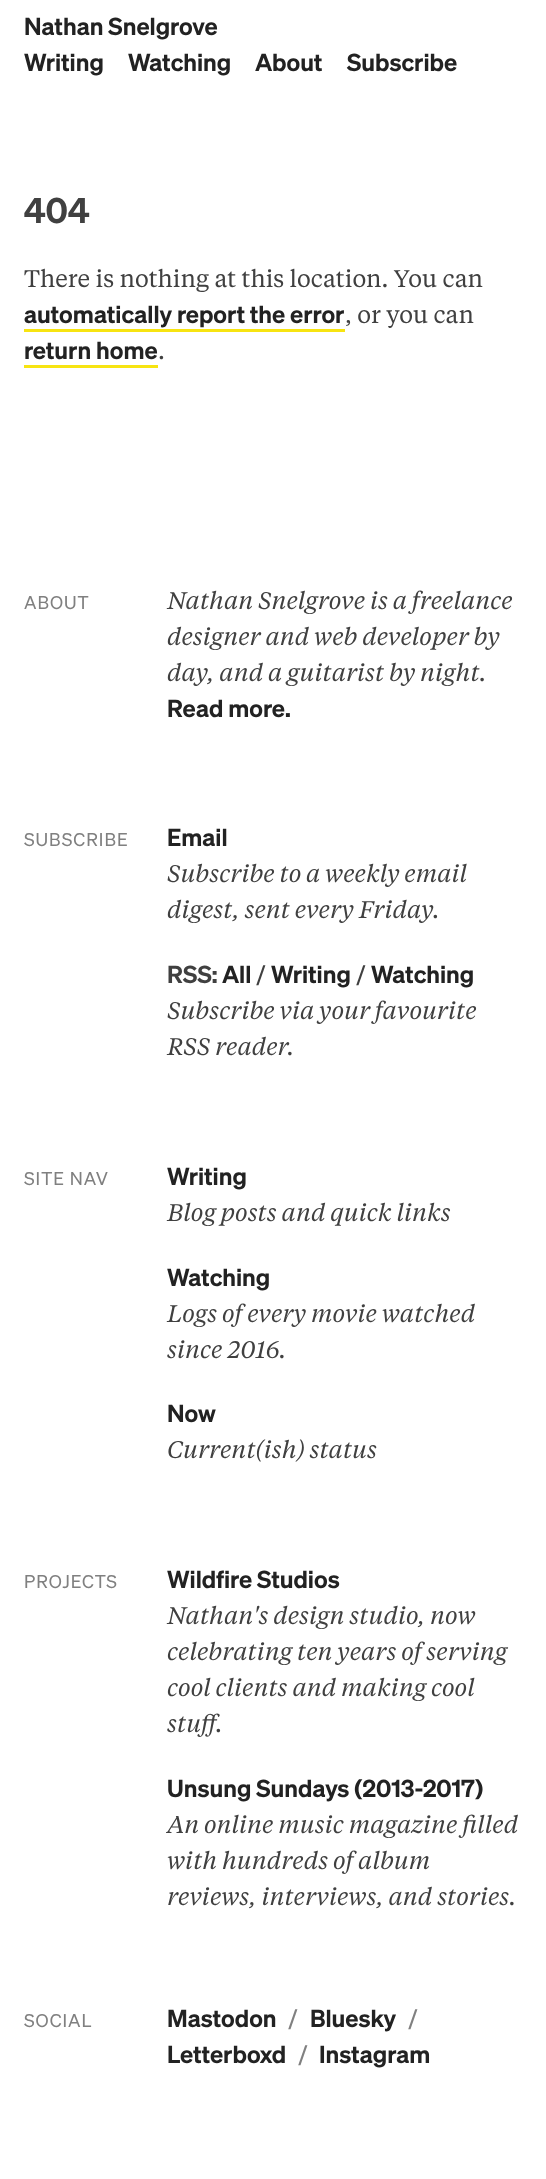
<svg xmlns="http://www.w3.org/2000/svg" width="546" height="2179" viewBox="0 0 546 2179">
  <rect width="100%" height="100%" fill="#fff"/>
  <path d="M24 329h321v3H24z" fill="#f7e411"/>
  <path d="M24 365h134v3H24z" fill="#f7e411"/>
  <g font-family="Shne" font-size="24" font-weight="600" fill="#222">
    <text x="24" y="35">Nathan Snelgrove</text>
    <text x="24" y="71">Writing</text>
    <text x="128" y="71">Watching</text>
    <text x="255" y="71">About</text>
    <text x="347" y="71">Subscribe</text>
  </g>
  <text x="24" y="223" font-family="Shne" font-size="35" font-weight="600" fill="#404040">404</text>
  <text x="24" y="287" font-family="'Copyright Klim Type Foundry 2'" font-size="24" fill="#404040">There is nothing at this location. You can</text>
  <text x="24" y="323" font-family="Shne" font-size="24" font-weight="600" fill="#222">automatically report the error</text>
  <text x="345" y="323" font-family="'Copyright Klim Type Foundry 2'" font-size="24" fill="#404040">, or you can</text>
  <text x="24" y="359" font-family="Shne" font-size="24" font-weight="600" fill="#222">return home</text>
  <text x="158" y="359" font-family="'Copyright Klim Type Foundry 2'" font-size="24" fill="#404040">.</text>
  <text x="24" y="609" font-family="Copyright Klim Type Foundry" font-size="18" letter-spacing="1" fill="#808080">ABOUT</text>
  <g font-family="Copyright Klim Type Foundry" font-size="24" font-style="italic" fill="#404040">
    <text x="167" y="609">Nathan Snelgrove is a freelance</text>
    <text x="167" y="645">designer and web developer by</text>
    <text x="167" y="681">day, and a guitarist by night.</text>
  </g>
  <text x="167" y="717" font-family="Shne" font-size="24" font-weight="600" fill="#222">Read more.</text>
  <text x="24" y="846" font-family="Copyright Klim Type Foundry" font-size="18" letter-spacing="1" fill="#808080">SUBSCRIBE</text>
  <text x="167" y="846" font-family="Shne" font-size="24" font-weight="600" fill="#222">Email</text>
  <g font-family="Copyright Klim Type Foundry" font-size="24" font-style="italic" fill="#404040">
    <text x="167" y="882">Subscribe to a weekly email</text>
    <text x="167" y="918">digest, sent every Friday.</text>
  </g>
  <text x="167" y="983" font-family="Shne" font-size="24" font-weight="600" fill="#404040">RSS:</text>
  <text x="222" y="983" font-family="Shne" font-size="24" font-weight="600" fill="#222">All</text>
  <text x="256" y="983" font-family="Copyright Klim Type Foundry" font-size="24" fill="#404040">/</text>
  <text x="271" y="983" font-family="Shne" font-size="24" font-weight="600" fill="#222">Writing</text>
  <text x="356" y="983" font-family="Copyright Klim Type Foundry" font-size="24" fill="#404040">/</text>
  <text x="371" y="983" font-family="Shne" font-size="24" font-weight="600" fill="#222">Watching</text>
  <g font-family="Copyright Klim Type Foundry" font-size="24" font-style="italic" fill="#404040">
    <text x="167" y="1019">Subscribe via your favourite</text>
    <text x="167" y="1055">RSS reader.</text>
  </g>
  <text x="24" y="1185" font-family="Copyright Klim Type Foundry" font-size="18" letter-spacing="1" fill="#808080">SITE NAV</text>
  <text x="167" y="1185" font-family="Shne" font-size="24" font-weight="600" fill="#222">Writing</text>
  <text x="167" y="1221" font-family="Copyright Klim Type Foundry" font-size="24" font-style="italic" fill="#404040">Blog posts and quick links</text>
  <text x="167" y="1286" font-family="Shne" font-size="24" font-weight="600" fill="#222">Watching</text>
  <g font-family="Copyright Klim Type Foundry" font-size="24" font-style="italic" fill="#404040">
    <text x="167" y="1322">Logs of every movie watched</text>
    <text x="167" y="1358">since 2016.</text>
  </g>
  <text x="167" y="1422" font-family="Shne" font-size="24" font-weight="600" fill="#222">Now</text>
  <text x="167" y="1458" font-family="Copyright Klim Type Foundry" font-size="24" font-style="italic" fill="#404040">Current(ish) status</text>
  <text x="24" y="1588" font-family="Copyright Klim Type Foundry" font-size="18" letter-spacing="1" fill="#808080">PROJECTS</text>
  <text x="167" y="1588" font-family="Shne" font-size="24" font-weight="600" fill="#222">Wildfire Studios</text>
  <g font-family="Copyright Klim Type Foundry" font-size="24" font-style="italic" fill="#404040">
    <text x="167" y="1624">Nathan's design studio, now</text>
    <text x="167" y="1660">celebrating ten years of serving</text>
    <text x="167" y="1696">cool clients and making cool</text>
    <text x="167" y="1732">stuff.</text>
  </g>
  <text x="167" y="1797" font-family="Shne" font-size="24" font-weight="600" fill="#222">Unsung Sundays (2013-2017)</text>
  <g font-family="Copyright Klim Type Foundry" font-size="24" font-style="italic" fill="#404040">
    <text x="167" y="1833">An online music magazine filled</text>
    <text x="167" y="1869">with hundreds of album</text>
    <text x="167" y="1905">reviews, interviews, and stories.</text>
  </g>
  <text x="24" y="2027" font-family="Copyright Klim Type Foundry" font-size="18" letter-spacing="1" fill="#808080">SOCIAL</text>
  <text x="167" y="2027" font-family="Shne" font-size="24" font-weight="600" fill="#222">Mastodon</text>
  <text x="288" y="2027" font-family="Copyright Klim Type Foundry" font-size="24" fill="#808080">/</text>
  <text x="310" y="2027" font-family="Shne" font-size="24" font-weight="600" fill="#222">Bluesky</text>
  <text x="408" y="2027" font-family="Copyright Klim Type Foundry" font-size="24" fill="#808080">/</text>
  <text x="167" y="2063" font-family="Shne" font-size="24" font-weight="600" fill="#222">Letterboxd</text>
  <text x="298" y="2063" font-family="Copyright Klim Type Foundry" font-size="24" fill="#808080">/</text>
  <text x="319" y="2063" font-family="Shne" font-size="24" font-weight="600" fill="#222">Instagram</text>
</svg>
